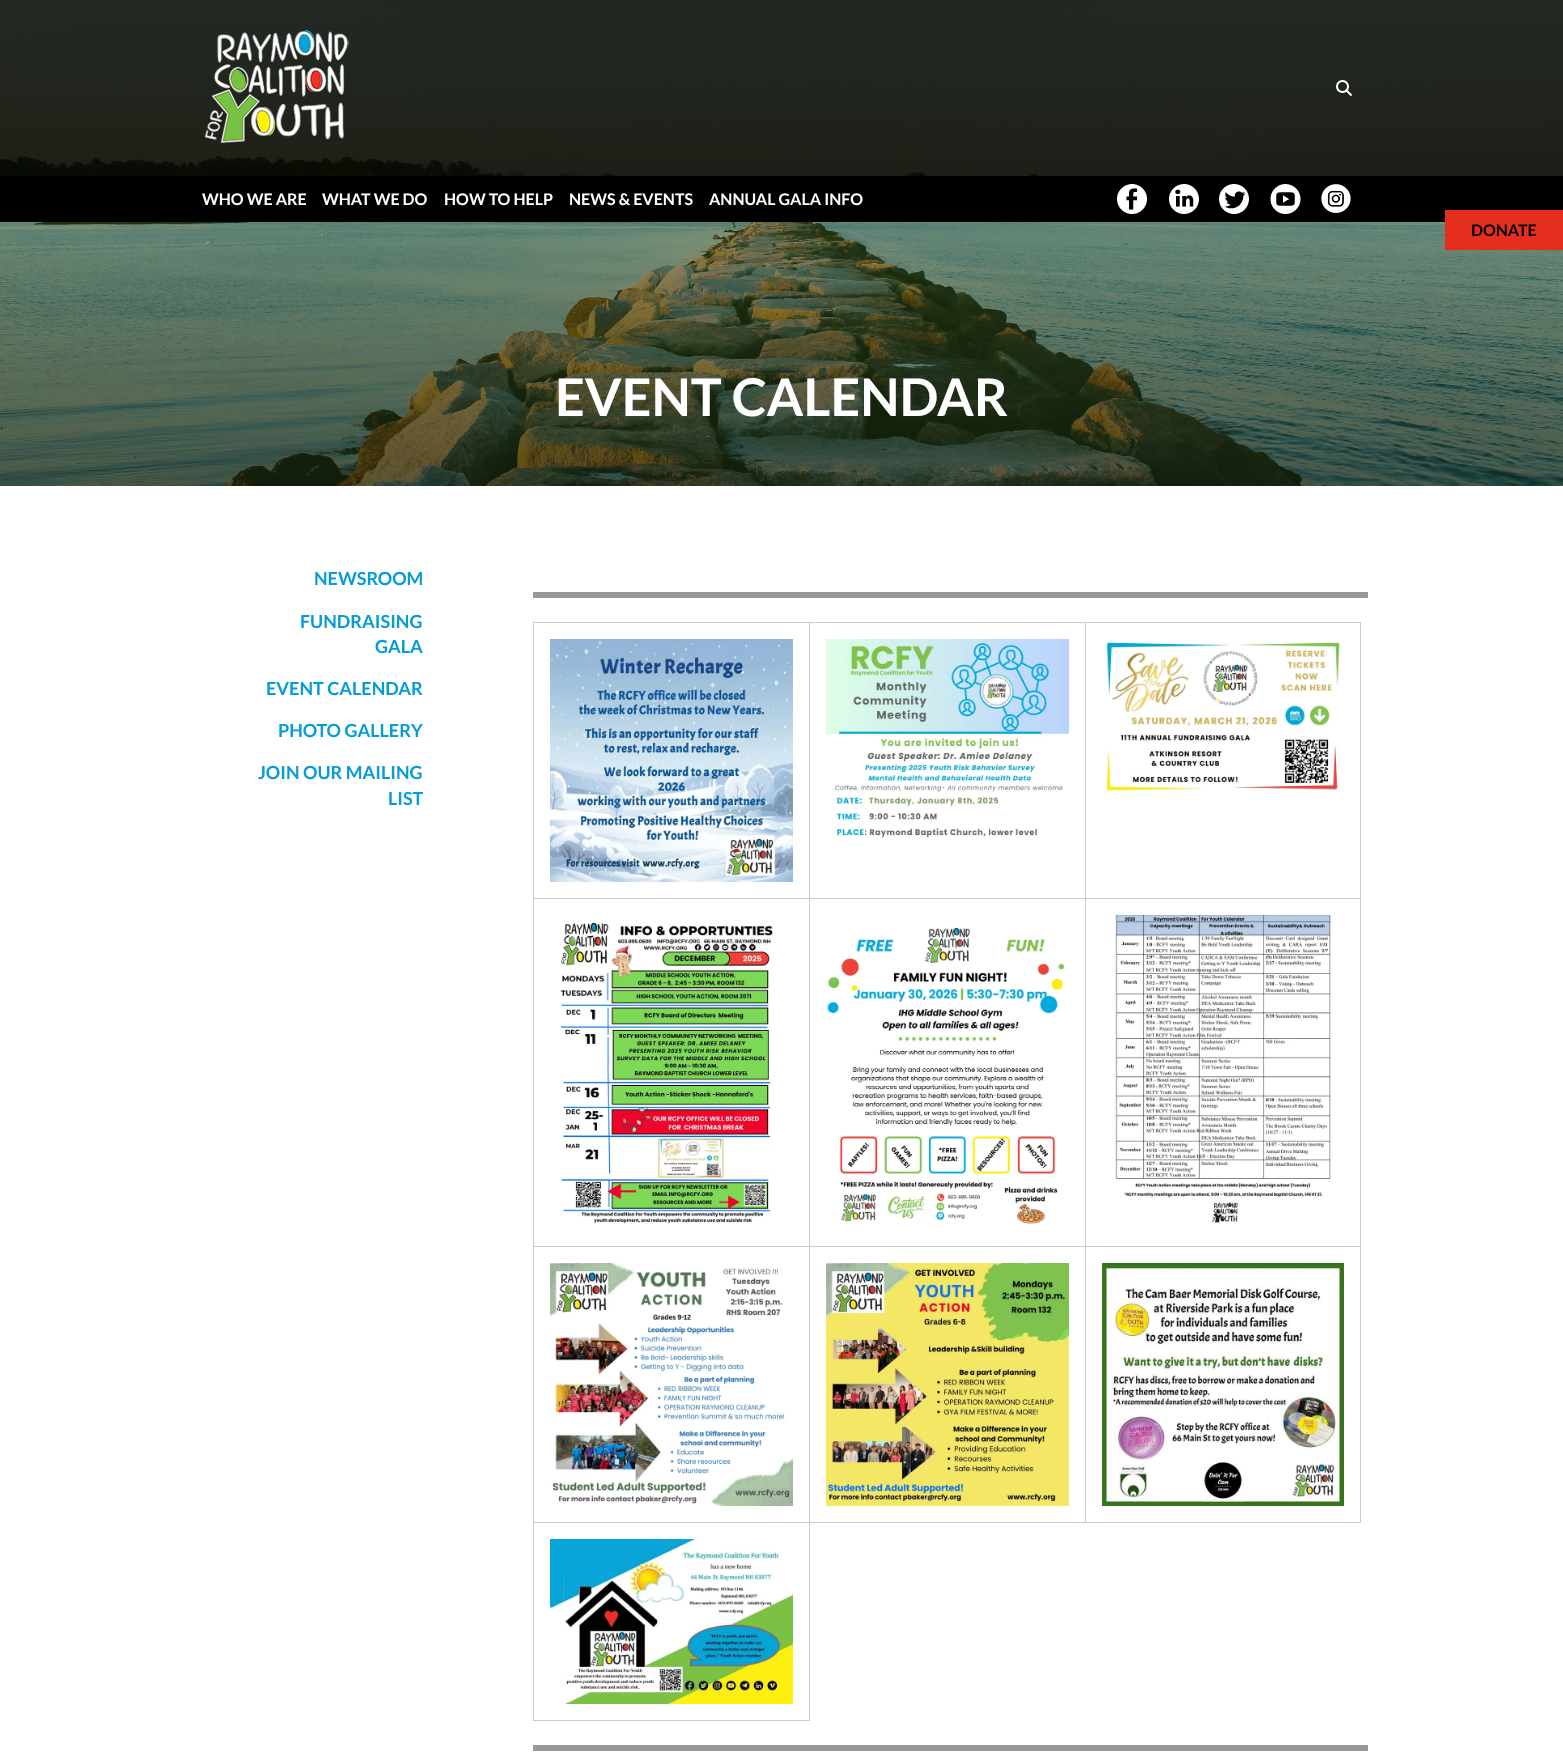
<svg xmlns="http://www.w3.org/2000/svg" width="1563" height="1761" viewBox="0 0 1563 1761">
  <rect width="100%" height="100%" fill="#fff"/>
  <image x="0" y="0" width="1563" height="486" href="img/8.png"/>
  <path d="M0 0h1563v176H0z" fill="#000000cc"/>
  <image x="204" y="30" width="145" height="113" href="img/1.png"/>
  <image x="1336" y="80" width="16" height="16" href="img/2.png"/>
  <path d="M0 176h1563v46H0z" fill="#000"/>
  <image x="1117" y="184" width="30" height="30" href="img/3.png"/>
  <image x="1169" y="184" width="30" height="30" href="img/4.png"/>
  <image x="1219" y="184" width="30" height="30" href="img/5.png"/>
  <image x="1270" y="184" width="31" height="30" href="img/6.png"/>
  <image x="1321" y="184" width="30" height="29" href="img/7.png"/>
  <path d="M1445 210h118v40H1445z" fill="#e62e1e"/>
  <path d="M533 592h835v6H533z" fill="#999"/>
  <path d="M533 622h1v1099H533z" fill="#ccc"/>
  <path d="M534 622h827v1H534z" fill="#ccc"/>
  <path d="M809 622h1v1099H809z" fill="#ccc"/>
  <path d="M534 898h276v1H534z" fill="#ccc"/>
  <image x="550" y="639" width="243" height="243" href="img/9.png"/>
  <path d="M1085 622h1v901H1085z" fill="#ccc"/>
  <path d="M810 898h276v1H810z" fill="#ccc"/>
  <image x="826" y="639" width="243" height="199" href="img/10.png"/>
  <path d="M1360 622h1v901H1360z" fill="#ccc"/>
  <path d="M1086 898h275v1H1086z" fill="#ccc"/>
  <image x="1105" y="642" width="236" height="150" href="img/11.png"/>
  <image x="1115" y="915" width="217" height="308" href="img/12.png"/>
  <path d="M534 1246h827v1H534z" fill="#ccc"/>
  <image x="560" y="922" width="213" height="302" href="img/13.png"/>
  <image x="826" y="927" width="239" height="297" href="img/14.png"/>
  <path d="M534 1522h827v1H534z" fill="#ccc"/>
  <image x="550" y="1263" width="243" height="243" href="img/15.png"/>
  <image x="826" y="1263" width="243" height="243" href="img/16.png"/>
  <image x="1102" y="1263" width="242" height="243" href="img/17.png"/>
  <path d="M534 1720h276v1H534z" fill="#ccc"/>
  <image x="550" y="1539" width="243" height="165" href="img/18.png"/>
  <path d="M533 1745h835v6H533z" fill="#999"/>
  <g font-family="Lato" font-size="16" font-weight="bold" fill="#fff">
    <text x="202" y="205">WHO WE ARE</text>
    <text x="322" y="205">WHAT WE DO</text>
    <text x="444" y="205">HOW TO HELP</text>
    <text x="569" y="205">NEWS &amp; EVENTS</text>
    <text x="709" y="205">ANNUAL GALA INFO</text>
  </g>
  <text x="1471" y="236" font-family="Lato" font-size="16" font-weight="bold" fill="#000">DONATE</text>
  <text x="555" y="416" font-family="Lato" font-size="52" font-weight="bold" fill="#fff">EVENT CALENDAR</text>
  <g font-family="Lato" font-size="18" font-weight="bold" fill="#069cd5">
    <text x="314" y="585">NEWSROOM</text>
    <text x="300" y="628">FUNDRAISING</text>
    <text x="375" y="653">GALA</text>
    <text x="266" y="695">EVENT CALENDAR</text>
    <text x="278" y="737">PHOTO GALLERY</text>
    <text x="258" y="779">JOIN OUR MAILING</text>
    <text x="388" y="805">LIST</text>
  </g>
</svg>
